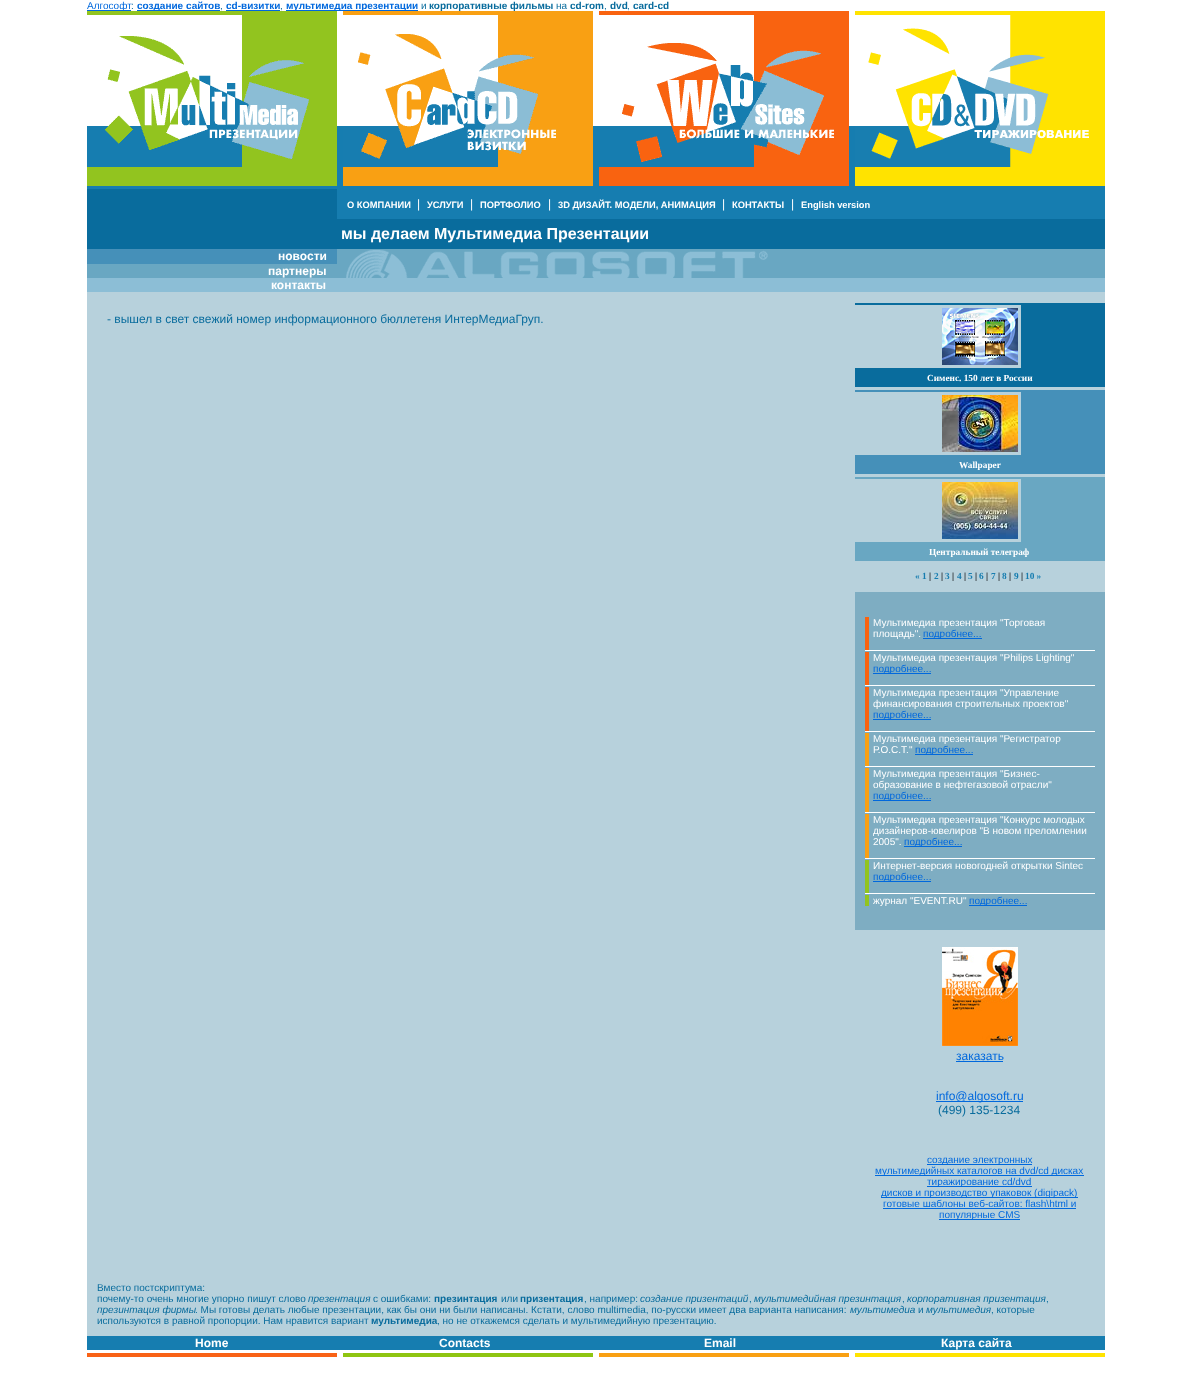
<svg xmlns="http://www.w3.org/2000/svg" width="1191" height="1379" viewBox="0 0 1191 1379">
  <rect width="100%" height="100%" fill="#fff"/>
  <path d="M87 10h44v1H87z" fill="#0068dd"/>
  <path d="M137 10h83v1H137z" fill="#0068dd"/>
  <path d="M226 10h54v1H226z" fill="#0068dd"/>
  <path d="M286 10h132v1H286z" fill="#0068dd"/>
  <path d="M337 126h6v60H337z" fill="#167db0"/>
  <path d="M593 126h6v60H593z" fill="#167db0"/>
  <image x="599" y="11" width="250" height="175" href="img/3.png"/>
  <path d="M849 126h6v60H849z" fill="#167db0"/>
  <image x="855" y="11" width="250" height="175" href="img/4.png"/>
  <path d="M87 186h1018v3H87z" fill="#167db0"/>
  <path d="M87 189h250v60H87z" fill="#096c9d"/>
  <path d="M337 189h768v30H337z" fill="#167db0"/>
  <path d="M337 219h768v30H337z" fill="#096c9d"/>
  <path d="M87 249h250v15H87z" fill="#4590b9"/>
  <path d="M337 249h768v29H337z" fill="#69a7c2"/>
  <image x="346" y="250" width="422" height="28" href="img/5.png"/>
  <path d="M87 264h250v14H87z" fill="#69a7c2"/>
  <path d="M87 278h1018v14H87z" fill="#8cbed6"/>
  <path d="M87 292h1018v1044H87z" fill="#b7d1dc"/>
  <path d="M855 303h250v2H855z" fill="#096c9d"/>
  <image x="942" y="308" width="76" height="57" href="img/6.png"/>
  <path d="M1021 305h84v63H1021z" fill="#096c9d"/>
  <path d="M855 368h250v19H855z" fill="#096c9d"/>
  <path d="M855 390h250v2H855z" fill="#4590b9"/>
  <image x="942" y="395" width="76" height="57" href="img/7.png"/>
  <path d="M1021 392h84v63H1021z" fill="#4590b9"/>
  <path d="M855 455h250v19H855z" fill="#4590b9"/>
  <path d="M855 477h250v2H855z" fill="#69a7c2"/>
  <image x="942" y="482" width="76" height="57" href="img/8.png"/>
  <path d="M1021 479h84v63H1021z" fill="#69a7c2"/>
  <path d="M855 542h250v19H855z" fill="#69a7c2"/>
  <path d="M855 592h250v338H855z" fill="#7eadc2"/>
  <path d="M865 617h4v33H865z" fill="#f96310"/>
  <path d="M923 638h59v1H923z" fill="#0068dd"/>
  <path d="M865 650h230v1H865z" fill="#fff"/>
  <path d="M865 652h4v33H865z" fill="#f96310"/>
  <path d="M873 673h58v1H873z" fill="#0068dd"/>
  <path d="M865 685h230v1H865z" fill="#fff"/>
  <path d="M865 687h4v44H865z" fill="#f96310"/>
  <path d="M873 719h58v1H873z" fill="#0068dd"/>
  <path d="M865 731h230v1H865z" fill="#fff"/>
  <path d="M865 733h4v33H865z" fill="#f9a013"/>
  <path d="M915 754h58v1H915z" fill="#0068dd"/>
  <path d="M865 766h230v1H865z" fill="#fff"/>
  <path d="M865 768h4v44H865z" fill="#f9a013"/>
  <path d="M873 800h58v1H873z" fill="#0068dd"/>
  <path d="M865 812h230v1H865z" fill="#fff"/>
  <path d="M865 814h4v44H865z" fill="#f9a013"/>
  <path d="M904 846h58v1H904z" fill="#0068dd"/>
  <path d="M865 858h230v1H865z" fill="#fff"/>
  <path d="M865 860h4v33H865z" fill="#92c41f"/>
  <path d="M873 881h58v1H873z" fill="#0068dd"/>
  <path d="M865 893h230v1H865z" fill="#fff"/>
  <path d="M865 895h4v11H865z" fill="#92c41f"/>
  <path d="M969 905h58v1H969z" fill="#0068dd"/>
  <image x="942" y="947" width="76" height="99" href="img/9.png"/>
  <path d="M956 1061h47v1H956z" fill="#0068dd"/>
  <path d="M936 1101h87v1H936z" fill="#0068dd"/>
  <path d="M927 1164h105v1H927z" fill="#0068dd"/>
  <path d="M875 1175h209v1H875z" fill="#0068dd"/>
  <path d="M927 1186h105v1H927z" fill="#0068dd"/>
  <path d="M881 1197h197v1H881z" fill="#0068dd"/>
  <path d="M883 1208h193v1H883z" fill="#0068dd"/>
  <path d="M939 1219h81v1H939z" fill="#0068dd"/>
  <path d="M87 1336h1018v14H87z" fill="#167db0"/>
  <path d="M87 1353h250v4H87z" fill="#f96216"/>
  <path d="M343 1353h250v4H343z" fill="#8fc511"/>
  <path d="M599 1353h250v4H599z" fill="#f9a013"/>
  <path d="M855 1353h250v4H855z" fill="#ffe300"/>
  <text x="87" y="9" font-family="Liberation Sans" font-size="10" fill="#0068dd">Алгософт</text>
  <text x="131" y="9" font-family="Liberation Sans" font-size="10" fill="#096c9d">:</text>
  <text x="137" y="9" font-family="Liberation Sans" font-size="10" font-weight="bold" fill="#0068dd">создание сайтов</text>
  <text x="220" y="9" font-family="Liberation Sans" font-size="10" fill="#096c9d">,</text>
  <text x="226" y="9" font-family="Liberation Sans" font-size="10" font-weight="bold" fill="#0068dd">cd-визитки</text>
  <text x="280" y="9" font-family="Liberation Sans" font-size="10" fill="#096c9d">,</text>
  <text x="286" y="9" font-family="Liberation Sans" font-size="10" font-weight="bold" fill="#0068dd">мультимедиа презентации</text>
  <text x="421" y="9" font-family="Liberation Sans" font-size="10" fill="#096c9d">и</text>
  <text x="429" y="9" font-family="Liberation Sans" font-size="10" font-weight="bold" fill="#096c9d">корпоративные фильмы</text>
  <text x="556" y="9" font-family="Liberation Sans" font-size="10" fill="#096c9d">на</text>
  <text x="570" y="9" font-family="Liberation Sans" font-size="10" font-weight="bold" fill="#096c9d">cd-rom</text>
  <text x="604" y="9" font-family="Liberation Sans" font-size="10" fill="#096c9d">,</text>
  <text x="610" y="9" font-family="Liberation Sans" font-size="10" font-weight="bold" fill="#096c9d">dvd</text>
  <text x="627" y="9" font-family="Liberation Sans" font-size="10" fill="#096c9d">,</text>
  <text x="633" y="9" font-family="Liberation Sans" font-size="10" font-weight="bold" fill="#096c9d">card-cd</text>
  <image x="87" y="11" width="250" height="175" href="img/1.png"/>
  <image x="343" y="11" width="250" height="175" href="img/2.png"/>
  <text x="347" y="208" font-family="Liberation Sans" font-size="9.3" font-weight="bold" fill="#fff">О КОМПАНИИ</text>
  <text x="417" y="208" font-family="Liberation Sans" font-size="12" fill="#fff">|</text>
  <text x="427" y="208" font-family="Liberation Sans" font-size="9.3" font-weight="bold" fill="#fff">УСЛУГИ</text>
  <text x="470" y="208" font-family="Liberation Sans" font-size="12" fill="#fff">|</text>
  <text x="480" y="208" font-family="Liberation Sans" font-size="9.3" font-weight="bold" fill="#fff">ПОРТФОЛИО</text>
  <text x="548" y="208" font-family="Liberation Sans" font-size="12" fill="#fff">|</text>
  <text x="558" y="208" font-family="Liberation Sans" font-size="9.3" font-weight="bold" fill="#fff">3D ДИЗАЙТ. МОДЕЛИ, АНИМАЦИЯ</text>
  <text x="722" y="208" font-family="Liberation Sans" font-size="12" fill="#fff">|</text>
  <text x="732" y="208" font-family="Liberation Sans" font-size="9.3" font-weight="bold" fill="#fff">КОНТАКТЫ</text>
  <text x="791" y="208" font-family="Liberation Sans" font-size="12" fill="#fff">|</text>
  <text x="801" y="208" font-family="Liberation Sans" font-size="9.3" font-weight="bold" fill="#fff">English version</text>
  <text x="341" y="239" font-family="Liberation Sans" font-size="16" font-weight="bold" fill="#fff">мы делаем Мультимедиа Презентации</text>
  <g font-family="Liberation Sans" font-size="12" font-weight="bold" fill="#fff">
    <text x="278" y="260">новости</text>
    <text x="268" y="275">партнеры</text>
    <text x="271" y="289">контакты</text>
  </g>
  <text x="107" y="323" font-family="Liberation Sans" font-size="12" fill="#096c9d">- вышел в свет свежий номер информационного бюллетеня ИнтерМедиаГруп.</text>
  <g font-family="Liberation Serif" font-size="9.3" font-weight="bold" fill="#fff">
    <text x="927" y="381">Сименс. 150 лет в России</text>
    <text x="959" y="468">Wallpaper</text>
    <text x="929" y="555">Центральный телеграф</text>
  </g>
  <text x="915" y="579" font-family="Liberation Serif" font-size="9.3" font-weight="bold" fill="#167db0">« 1</text>
  <text x="929" y="579" font-family="Liberation Serif" font-size="9.3" font-weight="bold" fill="#000">|</text>
  <text x="934" y="579" font-family="Liberation Serif" font-size="9.3" font-weight="bold" fill="#167db0">2</text>
  <text x="941" y="579" font-family="Liberation Serif" font-size="9.3" font-weight="bold" fill="#000">|</text>
  <text x="945" y="579" font-family="Liberation Serif" font-size="9.3" font-weight="bold" fill="#167db0">3</text>
  <text x="952" y="579" font-family="Liberation Serif" font-size="9.3" font-weight="bold" fill="#000">|</text>
  <text x="957" y="579" font-family="Liberation Serif" font-size="9.3" font-weight="bold" fill="#167db0">4</text>
  <text x="964" y="579" font-family="Liberation Serif" font-size="9.3" font-weight="bold" fill="#000">|</text>
  <text x="968" y="579" font-family="Liberation Serif" font-size="9.3" font-weight="bold" fill="#167db0">5</text>
  <text x="975" y="579" font-family="Liberation Serif" font-size="9.3" font-weight="bold" fill="#000">|</text>
  <text x="979" y="579" font-family="Liberation Serif" font-size="9.3" font-weight="bold" fill="#167db0">6</text>
  <text x="986" y="579" font-family="Liberation Serif" font-size="9.3" font-weight="bold" fill="#000">|</text>
  <text x="991" y="579" font-family="Liberation Serif" font-size="9.3" font-weight="bold" fill="#167db0">7</text>
  <text x="998" y="579" font-family="Liberation Serif" font-size="9.3" font-weight="bold" fill="#000">|</text>
  <text x="1002" y="579" font-family="Liberation Serif" font-size="9.3" font-weight="bold" fill="#167db0">8</text>
  <text x="1009" y="579" font-family="Liberation Serif" font-size="9.3" font-weight="bold" fill="#000">|</text>
  <text x="1014" y="579" font-family="Liberation Serif" font-size="9.3" font-weight="bold" fill="#167db0">9</text>
  <text x="1021" y="579" font-family="Liberation Serif" font-size="9.3" font-weight="bold" fill="#000">|</text>
  <text x="1025" y="579" font-family="Liberation Serif" font-size="9.3" font-weight="bold" fill="#167db0">10 »</text>
  <g font-family="Liberation Sans" font-size="10" fill="#fff">
    <text x="873" y="626">Мультимедиа презентация "Торговая</text>
    <text x="873" y="637">площадь".</text>
  </g>
  <text x="923" y="637" font-family="Liberation Sans" font-size="10" fill="#0068dd">подробнее...</text>
  <text x="873" y="661" font-family="Liberation Sans" font-size="10" fill="#fff">Мультимедиа презентация "Philips Lighting"</text>
  <text x="873" y="672" font-family="Liberation Sans" font-size="10" fill="#0068dd">подробнее...</text>
  <g font-family="Liberation Sans" font-size="10" fill="#fff">
    <text x="873" y="696">Мультимедиа презентация "Управление</text>
    <text x="873" y="707">финансирования строительных проектов"</text>
  </g>
  <text x="873" y="718" font-family="Liberation Sans" font-size="10" fill="#0068dd">подробнее...</text>
  <g font-family="Liberation Sans" font-size="10" fill="#fff">
    <text x="873" y="742">Мультимедиа презентация "Регистратор</text>
    <text x="873" y="753">Р.О.С.Т."</text>
  </g>
  <text x="915" y="753" font-family="Liberation Sans" font-size="10" fill="#0068dd">подробнее...</text>
  <g font-family="Liberation Sans" font-size="10" fill="#fff">
    <text x="873" y="777">Мультимедиа презентация "Бизнес-</text>
    <text x="873" y="788">образование в нефтегазовой отрасли"</text>
  </g>
  <text x="873" y="799" font-family="Liberation Sans" font-size="10" fill="#0068dd">подробнее...</text>
  <g font-family="Liberation Sans" font-size="10" fill="#fff">
    <text x="873" y="823">Мультимедиа презентация "Конкурс молодых</text>
    <text x="873" y="834">дизайнеров-ювелиров "В новом преломлении</text>
    <text x="873" y="845">2005".</text>
  </g>
  <text x="904" y="845" font-family="Liberation Sans" font-size="10" fill="#0068dd">подробнее...</text>
  <text x="873" y="869" font-family="Liberation Sans" font-size="10" fill="#fff">Интернет-версия новогодней открытки Sintec</text>
  <text x="873" y="880" font-family="Liberation Sans" font-size="10" fill="#0068dd">подробнее...</text>
  <text x="873" y="904" font-family="Liberation Sans" font-size="10" fill="#fff">журнал "EVENT.RU"</text>
  <text x="969" y="904" font-family="Liberation Sans" font-size="10" fill="#0068dd">подробнее...</text>
  <g font-family="Liberation Sans" font-size="12" fill="#0068dd">
    <text x="956" y="1060">заказать</text>
    <text x="936" y="1100">info@algosoft.ru</text>
  </g>
  <text x="938" y="1114" font-family="Liberation Sans" font-size="12" fill="#096c9d">(499) 135-1234</text>
  <g font-family="Liberation Sans" font-size="10" fill="#0068dd">
    <text x="927" y="1163">создание электронных</text>
    <text x="875" y="1174">мультимедийных каталогов на dvd/cd дисках</text>
    <text x="927" y="1185">тиражирование cd/dvd</text>
    <text x="881" y="1196">дисков и производство упаковок (digipack)</text>
    <text x="883" y="1207">готовые шаблоны веб-сайтов: flash\html и</text>
    <text x="939" y="1218">популярные CMS</text>
  </g>
  <g font-family="Liberation Sans" font-size="10" fill="#096c9d">
    <text x="97" y="1291">Вместо постскриптума:</text>
    <text x="97" y="1302">почему-то очень многие упорно пишут слово</text>
  </g>
  <text x="308" y="1302" font-family="Liberation Sans" font-size="10" font-style="italic" fill="#096c9d">презентация</text>
  <text x="373" y="1302" font-family="Liberation Sans" font-size="10" fill="#096c9d">с ошибками:</text>
  <text x="434" y="1302" font-family="Liberation Sans" font-size="10" font-weight="bold" fill="#096c9d">презинтация</text>
  <text x="501" y="1302" font-family="Liberation Sans" font-size="10" fill="#096c9d">или</text>
  <text x="520" y="1302" font-family="Liberation Sans" font-size="10" font-weight="bold" fill="#096c9d">призентация</text>
  <text x="584" y="1302" font-family="Liberation Sans" font-size="10" fill="#096c9d">, например:</text>
  <text x="640" y="1302" font-family="Liberation Sans" font-size="10" font-style="italic" fill="#096c9d">создание призентаций</text>
  <text x="749" y="1302" font-family="Liberation Sans" font-size="10" fill="#096c9d">,</text>
  <text x="754" y="1302" font-family="Liberation Sans" font-size="10" font-style="italic" fill="#096c9d">мультимедийная презинтация</text>
  <text x="902" y="1302" font-family="Liberation Sans" font-size="10" fill="#096c9d">,</text>
  <text x="907" y="1302" font-family="Liberation Sans" font-size="10" font-style="italic" fill="#096c9d">корпоративная призентация</text>
  <text x="1046" y="1302" font-family="Liberation Sans" font-size="10" fill="#096c9d">,</text>
  <text x="97" y="1313" font-family="Liberation Sans" font-size="10" font-style="italic" fill="#096c9d">презинтация фирмы</text>
  <text x="195" y="1313" font-family="Liberation Sans" font-size="10" fill="#096c9d">. Мы готовы делать любые презентации, как бы они ни были написаны. Кстати, слово multimedia, по-русски имеет два варианта написания:</text>
  <text x="850" y="1313" font-family="Liberation Sans" font-size="10" font-style="italic" fill="#096c9d">мультимедиа</text>
  <text x="918" y="1313" font-family="Liberation Sans" font-size="10" fill="#096c9d">и</text>
  <text x="926" y="1313" font-family="Liberation Sans" font-size="10" font-style="italic" fill="#096c9d">мультимедия</text>
  <g font-family="Liberation Sans" font-size="10" fill="#096c9d">
    <text x="991" y="1313">, которые</text>
    <text x="97" y="1324">используются в равной пропорции. Нам нравится вариант</text>
  </g>
  <text x="371" y="1324" font-family="Liberation Sans" font-size="10" font-weight="bold" fill="#096c9d">мультимедиа</text>
  <text x="437" y="1324" font-family="Liberation Sans" font-size="10" fill="#096c9d">, но не откажемся сделать и мультимедийную презентацию.</text>
  <g font-family="Liberation Sans" font-size="12" font-weight="bold" fill="#fff">
    <text x="195" y="1347">Home</text>
    <text x="439" y="1347">Contacts</text>
    <text x="704" y="1347">Email</text>
    <text x="941" y="1347">Карта сайта</text>
  </g>
</svg>
